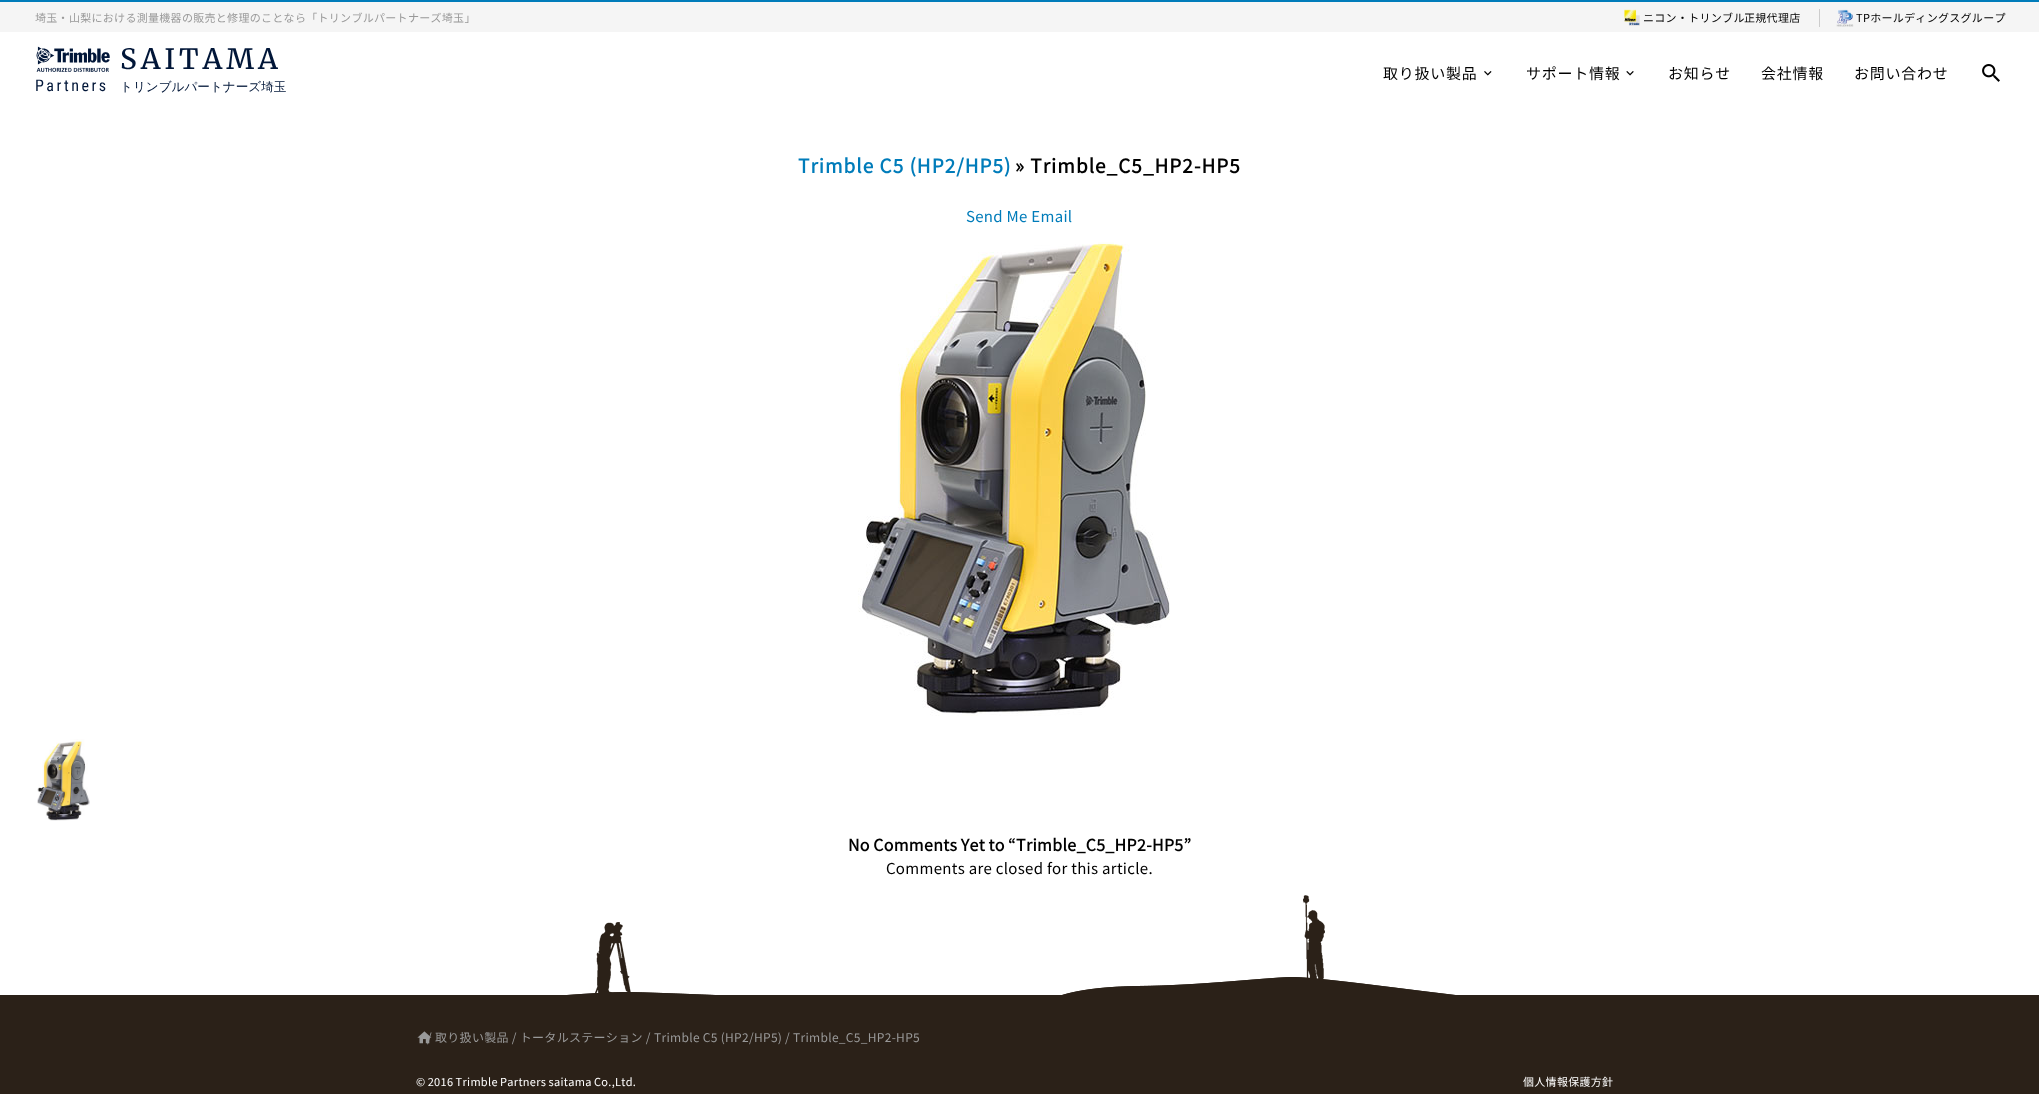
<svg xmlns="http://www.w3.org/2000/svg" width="2039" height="1094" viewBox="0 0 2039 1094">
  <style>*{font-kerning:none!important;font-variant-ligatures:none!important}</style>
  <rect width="100%" height="100%" fill="#fff"/>
  <path d="M0 0h2039v2H0z" fill="#007cba"/>
  <path d="M0 2h2039v30H0z" fill="#f5f5f5"/>
  <image x="1624" y="9" width="16" height="17" href="img/1.png"/>
  <path d="M1819 9h1v18H1819z" fill="#ccc"/>
  <image x="1836" y="9" width="18" height="18" href="img/2.png"/>
  <image x="36" y="46" width="74" height="26" href="img/3.png"/>
  <image x="1484" y="71" width="8" height="5" href="img/4.png"/>
  <image x="1626" y="71" width="8" height="5" href="img/5.png"/>
  <image x="1982" y="64" width="18" height="18" href="img/6.png"/>
  <image x="858" y="242" width="312" height="474" href="img/7.png"/>
  <image x="37" y="739" width="53" height="82" href="img/8.png"/>
  <image x="567" y="895" width="889" height="100" href="img/9.png"/>
  <path d="M0 995h2039v99H0z" fill="#2b2118"/>
  <text x="35" y="22" font-family="Noto Sans JP" font-size="11" letter-spacing="0.3" fill="#999">埼玉・山梨における測量機器の販売と修理のことなら「トリンブルパートナーズ埼玉」</text>
  <g font-family="Noto Sans JP" font-size="11" letter-spacing="0.3" fill="#000">
    <text x="1643" y="22">ニコン・トリンブル</text>
    <text x="1744" y="22">正規代理店</text>
    <text x="1856" y="22">TPホールディングスグループ</text>
  </g>
  <text x="120" y="69" font-family="Merriweather" font-size="28" font-weight="500" letter-spacing="4" fill="#011638">SAITAMA</text>
  <text x="35" y="91" font-family="Roboto Condensed" font-size="16" letter-spacing="2.5" fill="#011638">Partners</text>
  <text x="120" y="91" font-family="WenQuanYi Zen Hei" font-size="12.6" font-weight="500" fill="#011638">トリンブルパートナーズ埼玉</text>
  <g font-family="Noto Sans JP" font-size="15" letter-spacing="0.75" fill="#000">
    <text x="1383" y="79">取り扱い製品</text>
    <text x="1526" y="79">サポート情報</text>
    <text x="1668" y="79">お知らせ</text>
    <text x="1761" y="79">会社情報</text>
    <text x="1854" y="79">お問い合わせ</text>
  </g>
  <text x="798" y="173" font-family="Noto Sans JP" font-size="19" font-weight="bold" letter-spacing="1" fill="#007cba">Trimble C5 (HP2/HP5)</text>
  <text x="1015" y="173" font-family="Noto Sans JP" font-size="19" font-weight="bold" letter-spacing="1" fill="#000">» Trimble_C5_HP2-HP5</text>
  <text x="966" y="222" font-family="Noto Sans JP" font-size="15" letter-spacing="0.3" fill="#007cba">Send Me Email</text>
  <text x="848" y="851" word-spacing="-0.5" font-family="Noto Sans JP" font-size="16" font-weight="bold" letter-spacing="0.3" fill="#000">No Comments Yet to “Trimble_C5_HP2-HP5”</text>
  <text x="886" y="874" font-family="Noto Sans JP" font-size="15" letter-spacing="0.3" fill="#000">Comments are closed for this article.</text>
  <text x="427" y="1042" font-family="Noto Sans JP" font-size="12" letter-spacing="0.3" fill="#999">/ 取り扱い製品 / トータルステーション /</text>
  <image x="417" y="1031" width="15" height="13" href="img/10.png"/>
  <g font-family="Noto Sans JP" font-size="12" letter-spacing="0.3" fill="#999">
    <text x="654" y="1042">Trimble C5 (HP2/HP5)</text>
    <text x="785" y="1042">/ Trimble_C5_HP2-HP5</text>
  </g>
  <g font-family="Noto Sans JP" font-size="11" letter-spacing="0.3" fill="#fff">
    <text x="416" y="1086" word-spacing="-0.5">© 2016 Trimble Partners saitama Co.,Ltd.</text>
    <text x="1523" y="1086">個人情報保護方針</text>
  </g>
</svg>
